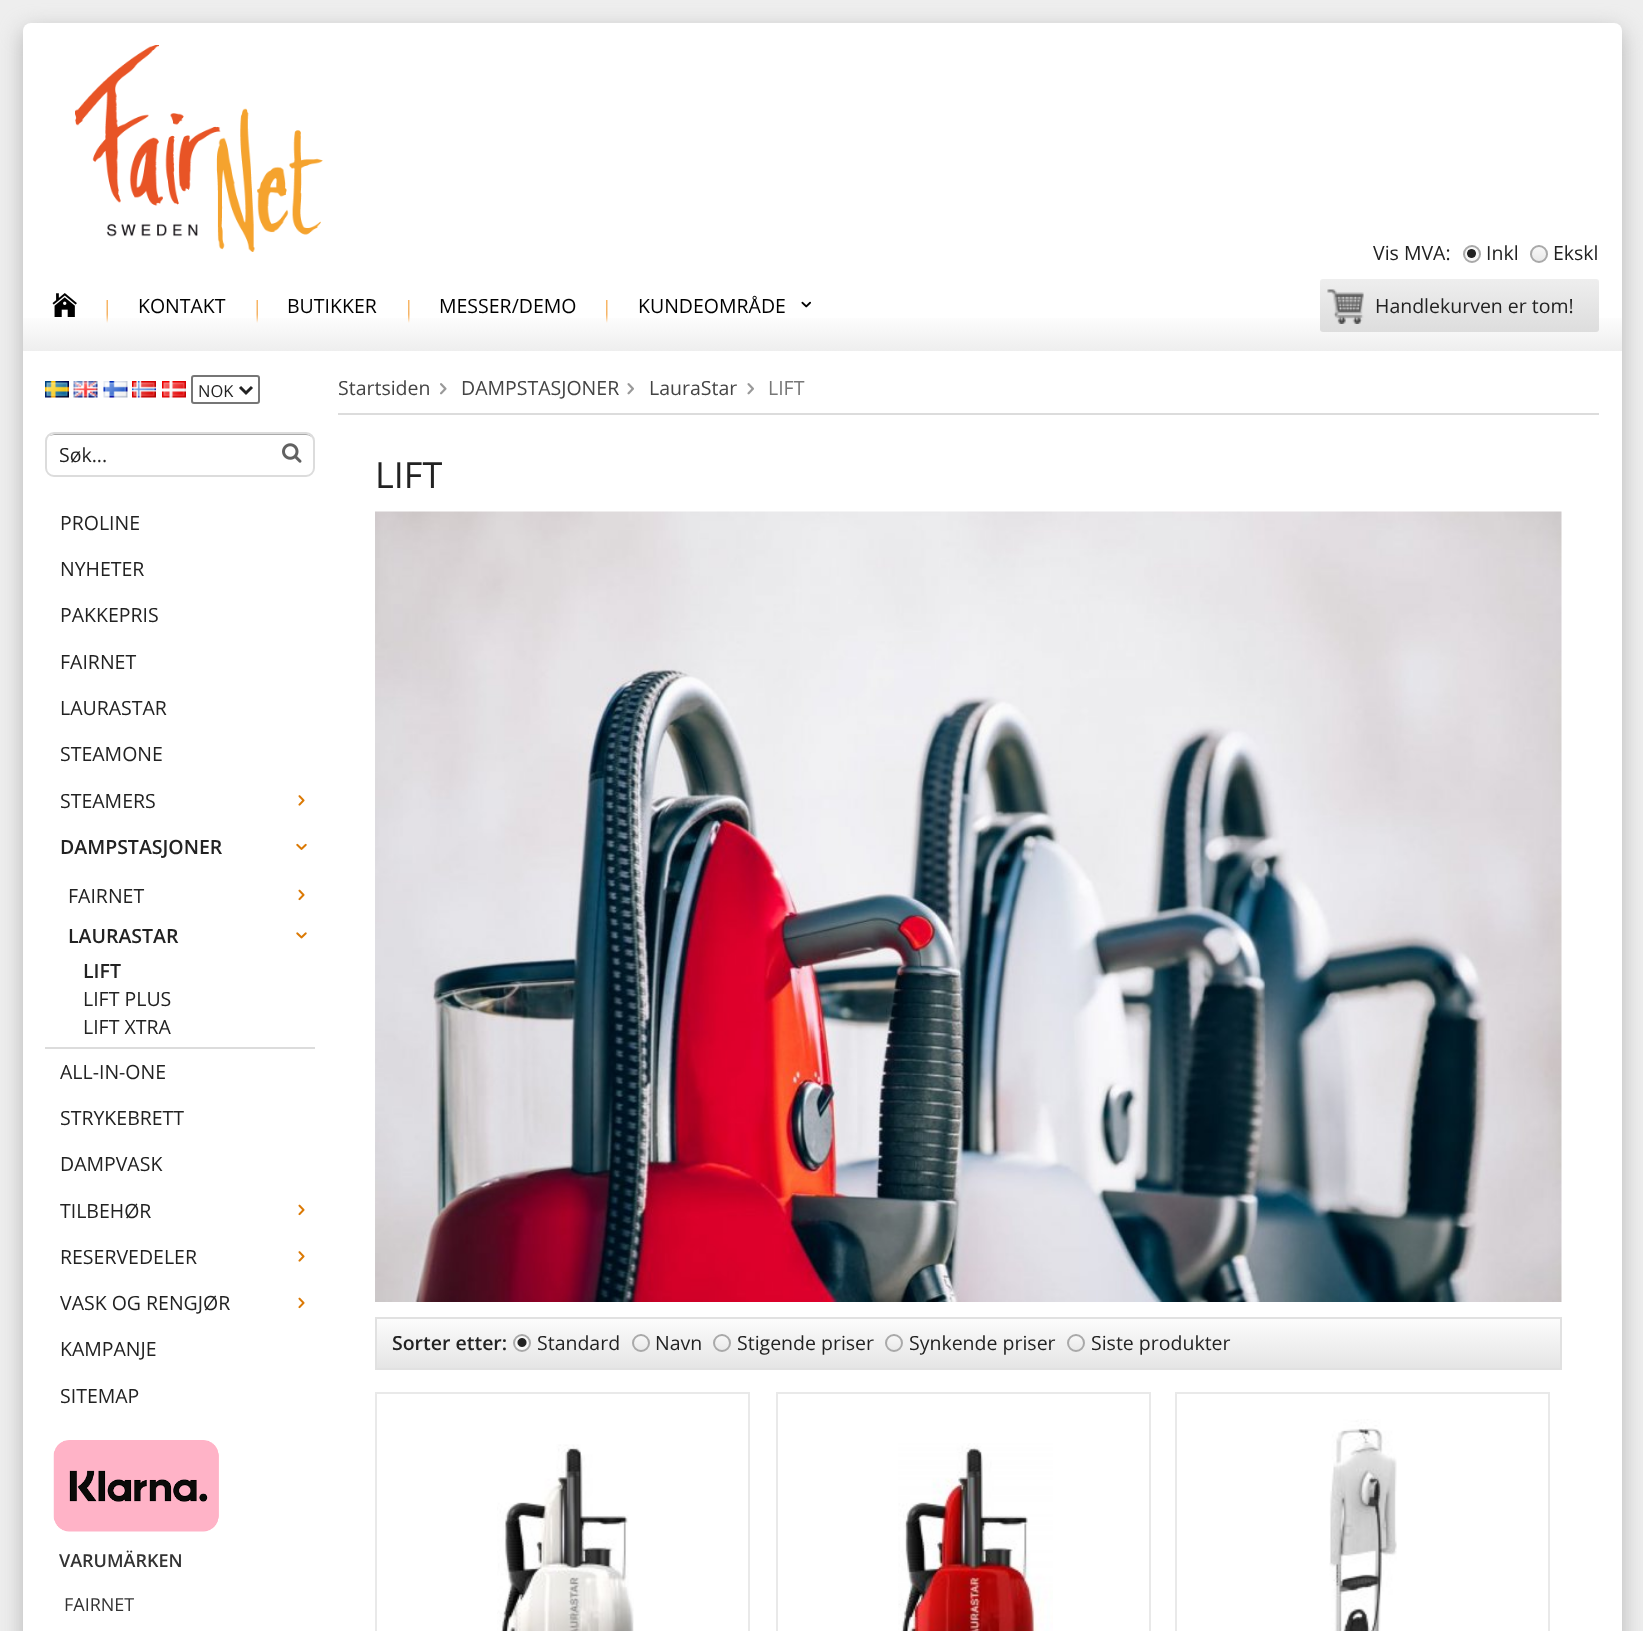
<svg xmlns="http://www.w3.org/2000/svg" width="1643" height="1631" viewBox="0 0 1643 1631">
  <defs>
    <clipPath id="clip1"><rect x="1530" y="245" width="18" height="18" rx="9"/></clipPath>
    <linearGradient id="g1" gradientUnits="userSpaceOnUse" x1="1539" y1="246" x2="1539" y2="261"><stop offset="0" stop-color="#f9f9f9"/><stop offset="1" stop-color="#e9e9e9"/></linearGradient>
    <linearGradient id="g2" gradientUnits="userSpaceOnUse" x1="822" y1="274" x2="822" y2="351"><stop offset="0.5" stop-color="#fff"/><stop offset="1" stop-color="#eee"/></linearGradient>
    <linearGradient id="g3" gradientUnits="userSpaceOnUse" x1="1460" y1="279" x2="1460" y2="332"><stop offset="0" stop-color="#eee"/><stop offset="1" stop-color="#ddd"/></linearGradient>
    <linearGradient id="g4" gradientUnits="userSpaceOnUse" x1="968" y1="1319" x2="968" y2="1368"><stop offset="0" stop-color="#fcfcfc"/><stop offset="1" stop-color="#e5e5e5"/></linearGradient>
    <clipPath id="clip2"><rect x="632" y="1334" width="18" height="18" rx="9"/></clipPath>
    <linearGradient id="g5" gradientUnits="userSpaceOnUse" x1="641" y1="1335" x2="641" y2="1350"><stop offset="0" stop-color="#f9f9f9"/><stop offset="1" stop-color="#e9e9e9"/></linearGradient>
    <clipPath id="clip3"><rect x="713" y="1334" width="18" height="18" rx="9"/></clipPath>
    <linearGradient id="g6" gradientUnits="userSpaceOnUse" x1="722" y1="1335" x2="722" y2="1350"><stop offset="0" stop-color="#f9f9f9"/><stop offset="1" stop-color="#e9e9e9"/></linearGradient>
    <clipPath id="clip4"><rect x="885" y="1334" width="18" height="18" rx="9"/></clipPath>
    <linearGradient id="g7" gradientUnits="userSpaceOnUse" x1="894" y1="1335" x2="894" y2="1350"><stop offset="0" stop-color="#f9f9f9"/><stop offset="1" stop-color="#e9e9e9"/></linearGradient>
    <clipPath id="clip5"><rect x="1067" y="1334" width="18" height="18" rx="9"/></clipPath>
    <linearGradient id="g8" gradientUnits="userSpaceOnUse" x1="1076" y1="1335" x2="1076" y2="1350"><stop offset="0" stop-color="#f9f9f9"/><stop offset="1" stop-color="#e9e9e9"/></linearGradient>
  </defs>
  <rect width="100%" height="100%" fill="#eee"/>
  <rect x="23" y="30" width="1599" height="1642" rx="8" fill="#b5b5b5" filter="blur(11px)"/>
  <rect x="23" y="23" width="1599" height="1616" rx="8" fill="#fff"/>
  <image x="75" y="45" width="248" height="207" href="img/1.png"/>
  <circle cx="1472" cy="254" r="9" fill="#f9f9f9"/>
  <image x="1467" y="249" width="9" height="9" href="img/2.png"/>
  <circle cx="1472" cy="254" r="8" fill="none" stroke="#a9a9a9" stroke-width="2"/>
  <g clip-path="url(#clip1)">
    <path d="M1530 246h18v15H1530z" fill="url(#g1)"/>
  </g>
  <circle cx="1539" cy="254" r="8" fill="none" stroke="#a9a9a9" stroke-width="2"/>
  <path d="M23 318h1599v33H23z" fill="url(#g2)"/>
  <image x="52" y="293" width="25" height="24" href="img/3.png"/>
  <image x="106" y="300" width="2" height="23" href="img/4.png"/>
  <image x="256" y="300" width="2" height="23" href="img/4.png"/>
  <image x="408" y="300" width="2" height="23" href="img/5.png"/>
  <image x="606" y="300" width="2" height="23" href="img/5.png"/>
  <image x="801" y="301" width="10" height="7" href="img/6.png"/>
  <rect x="1320" y="279" width="279" height="53" rx="3" fill="url(#g3)"/>
  <image x="1327" y="289" width="37" height="35" href="img/7.png"/>
  <image x="45" y="381" width="24" height="17" href="img/8.png"/>
  <image x="73" y="381" width="25" height="17" href="img/9.png"/>
  <image x="103" y="381" width="25" height="17" href="img/10.png"/>
  <image x="132" y="381" width="24" height="17" href="img/11.png"/>
  <image x="162" y="381" width="24" height="17" href="img/12.png"/>
  <rect x="192" y="376" width="67" height="27" rx="2" fill="none" stroke="#767676" stroke-width="2"/>
  <path d="M240 387L246 393L252 387" fill="none" stroke="#222" stroke-width="3"/>
  <path d="M54 435H306C310 435 314 438 314 442C314 438 310 434 306 434H55C53 434 51 435 49 436C51 436 52 435 54 435Z" fill="#aaa"/>
  <rect x="46" y="433" width="268" height="43" rx="8" fill="none" stroke="#dcdcdc" stroke-width="2"/>
  <image x="282" y="443" width="20" height="20" href="img/13.png"/>
  <image x="298" y="795" width="7" height="11" href="img/14.png"/>
  <image x="296" y="843" width="11" height="7" href="img/15.png"/>
  <path d="M45 1047h270v2H45z" fill="#dcdcdc"/>
  <image x="298" y="889" width="7" height="12" href="img/16.png"/>
  <image x="296" y="932" width="11" height="7" href="img/17.png"/>
  <image x="298" y="1204" width="7" height="12" href="img/16.png"/>
  <image x="298" y="1251" width="7" height="11" href="img/14.png"/>
  <image x="298" y="1297" width="7" height="12" href="img/16.png"/>
  <image x="53" y="1440" width="166" height="92" href="img/18.png"/>
  <path d="M338 413h1261v2H338z" fill="#dcdcdc"/>
  <image x="440" y="383" width="7" height="12" href="img/19.png"/>
  <image x="627" y="383" width="7" height="12" href="img/20.png"/>
  <image x="747" y="383" width="7" height="12" href="img/20.png"/>
  <image x="375" y="511" width="1187" height="791" href="img/21.png"/>
  <path d="M377 1319h1183v49H377z" fill="url(#g4)"/>
  <path d="M376 1318h1185v51H376z" fill="none" stroke="#e1e1e1" stroke-width="2"/>
  <circle cx="522" cy="1343" r="9" fill="#f9f9f9"/>
  <image x="517" y="1338" width="10" height="9" href="img/22.png"/>
  <circle cx="522" cy="1343" r="8" fill="none" stroke="#a9a9a9" stroke-width="2"/>
  <g clip-path="url(#clip2)">
    <path d="M632 1335h18v15H632z" fill="url(#g5)"/>
  </g>
  <circle cx="641" cy="1343" r="8" fill="none" stroke="#a9a9a9" stroke-width="2"/>
  <g clip-path="url(#clip3)">
    <path d="M713 1335h18v15H713z" fill="url(#g6)"/>
  </g>
  <circle cx="722" cy="1343" r="8" fill="none" stroke="#a9a9a9" stroke-width="2"/>
  <g clip-path="url(#clip4)">
    <path d="M885 1335h18v15H885z" fill="url(#g7)"/>
  </g>
  <circle cx="894" cy="1343" r="8" fill="none" stroke="#a9a9a9" stroke-width="2"/>
  <g clip-path="url(#clip5)">
    <path d="M1067 1335h18v15H1067z" fill="url(#g8)"/>
  </g>
  <circle cx="1076" cy="1343" r="8" fill="none" stroke="#a9a9a9" stroke-width="2"/>
  <path d="M376 1393h373v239H376z" fill="none" stroke="#e9e9e9" stroke-width="2"/>
  <image x="497" y="1444" width="137" height="187" href="img/23.png"/>
  <path d="M777 1393h373v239H777z" fill="none" stroke="#e9e9e9" stroke-width="2"/>
  <image x="898" y="1443" width="155" height="188" href="img/24.png"/>
  <path d="M1176 1393h373v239H1176z" fill="none" stroke="#e9e9e9" stroke-width="2"/>
  <image x="1329" y="1419" width="68" height="212" href="img/25.png"/>
  <g font-family="Open Sans" font-size="19.5" fill="#222">
    <text x="1373" y="260">Vis MVA:</text>
    <text x="1486" y="260">Inkl</text>
    <text x="1553" y="260">Ekskl</text>
  </g>
  <g font-family="Open Sans" font-size="19.5" fill="#000">
    <text x="138" y="313">KONTAKT</text>
    <text x="287" y="313">BUTIKKER</text>
    <text x="439" y="313">MESSER/DEMO</text>
    <text x="638" y="313">KUNDEOMRÅDE</text>
  </g>
  <text x="1375" y="313" font-family="Open Sans" font-size="19.5" fill="#222">Handlekurven er tom!</text>
  <text x="198" y="397" font-family="Open Sans" font-size="16.5" fill="#222">NOK</text>
  <g font-family="Open Sans" font-size="19.5" fill="#222">
    <text x="59" y="462">Søk...</text>
    <text x="60" y="530">PROLINE</text>
    <text x="60" y="576">NYHETER</text>
    <text x="60" y="622">PAKKEPRIS</text>
    <text x="60" y="669">FAIRNET</text>
    <text x="60" y="715">LAURASTAR</text>
    <text x="60" y="761">STEAMONE</text>
    <text x="60" y="808">STEAMERS</text>
  </g>
  <text x="60" y="854" font-family="Open Sans" font-size="19.5" font-weight="600" fill="#222">DAMPSTASJONER</text>
  <text x="68" y="903" font-family="Open Sans" font-size="19.5" fill="#222">FAIRNET</text>
  <g font-family="Open Sans" font-size="19.5" font-weight="600" fill="#222">
    <text x="68" y="943">LAURASTAR</text>
    <text x="83" y="978">LIFT</text>
  </g>
  <g font-family="Open Sans" font-size="19.5" fill="#222">
    <text x="83" y="1006">LIFT PLUS</text>
    <text x="83" y="1034">LIFT XTRA</text>
    <text x="60" y="1079">ALL-IN-ONE</text>
    <text x="60" y="1125">STRYKEBRETT</text>
    <text x="60" y="1171">DAMPVASK</text>
    <text x="60" y="1218">TILBEHØR</text>
    <text x="60" y="1264">RESERVEDELER</text>
    <text x="60" y="1310">VASK OG RENGJØR</text>
    <text x="60" y="1356">KAMPANJE</text>
    <text x="60" y="1403">SITEMAP</text>
  </g>
  <text x="59" y="1567" font-family="Open Sans" font-size="18" font-weight="600" fill="#333">VARUMÄRKEN</text>
  <text x="64" y="1611" font-family="Open Sans" font-size="18" fill="#333">FAIRNET</text>
  <g font-family="Open Sans" font-size="19.5" fill="#444">
    <text x="338" y="395">Startsiden</text>
    <text x="461" y="395">DAMPSTASJONER</text>
    <text x="649" y="395">LauraStar</text>
  </g>
  <text x="768" y="395" font-family="Open Sans" font-size="19.5" fill="#777">LIFT</text>
  <text x="375" y="488" font-family="Open Sans" font-size="36" fill="#222">LIFT</text>
  <text x="392" y="1350" font-family="Open Sans" font-size="19.5" font-weight="600" fill="#222">Sorter etter:</text>
  <g font-family="Open Sans" font-size="19.5" fill="#222">
    <text x="537" y="1350">Standard</text>
    <text x="655" y="1350">Navn</text>
    <text x="737" y="1350">Stigende priser</text>
    <text x="909" y="1350">Synkende priser</text>
    <text x="1091" y="1350">Siste produkter</text>
  </g>
</svg>
